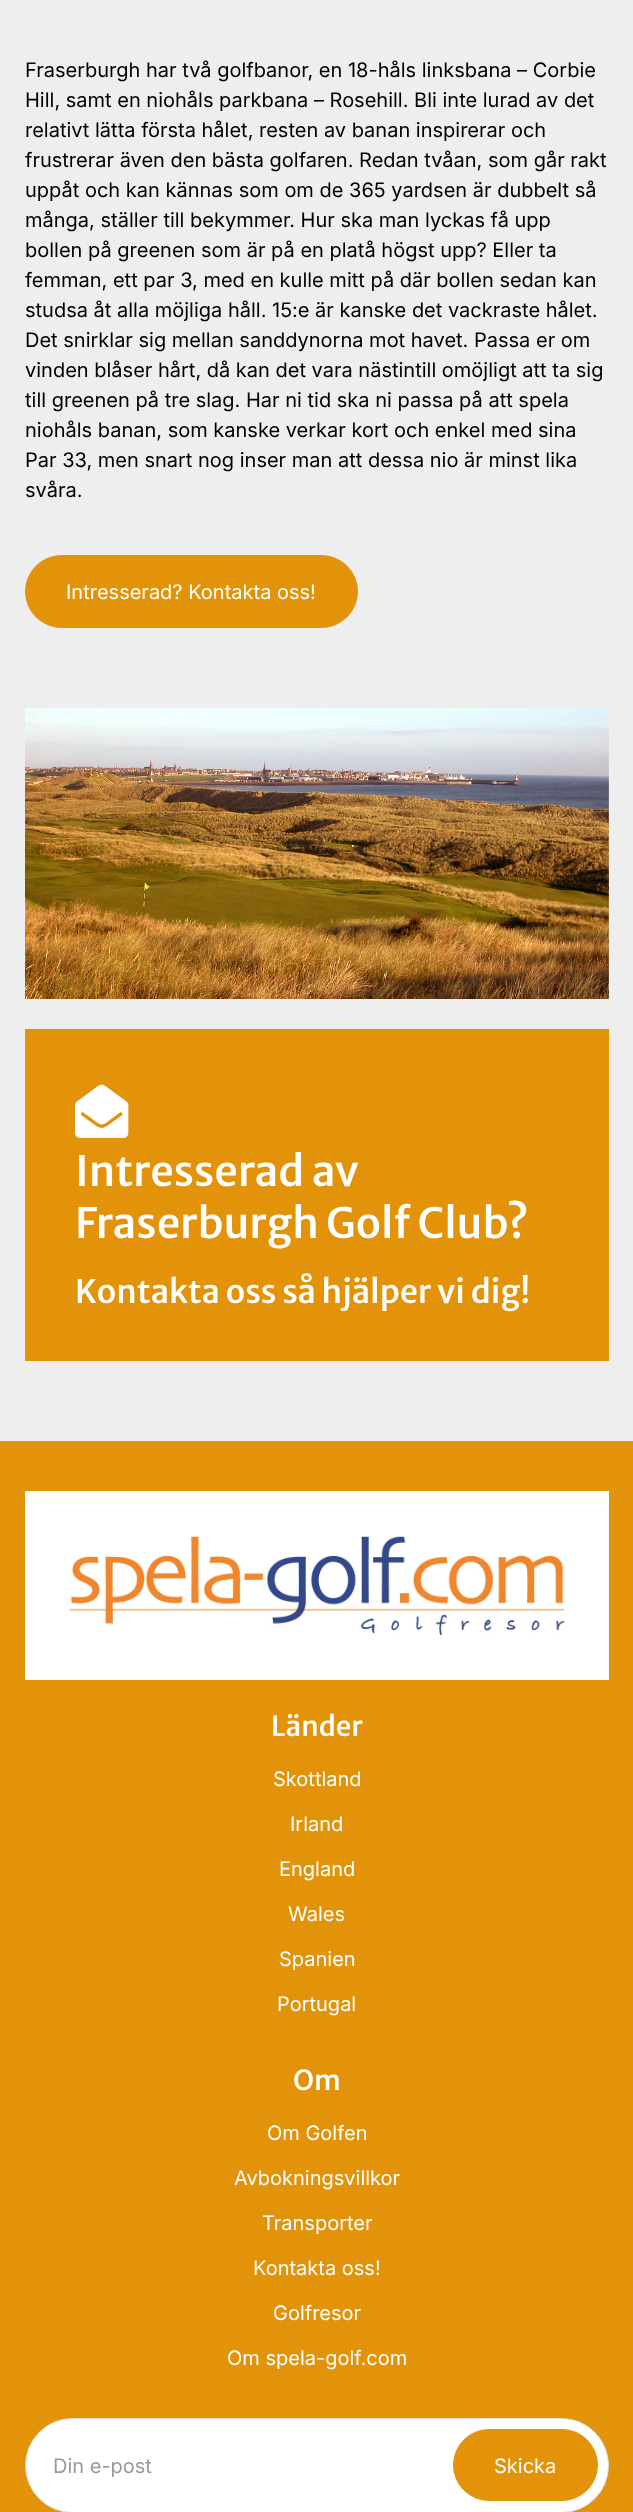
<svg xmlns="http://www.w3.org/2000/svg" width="633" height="2512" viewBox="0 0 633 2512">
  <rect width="100%" height="100%" fill="#eee"/>
  <rect x="25.5" y="555.5" width="332" height="72" rx="36" fill="#e39309" stroke="#e39309"/>
  <image x="25" y="708" width="584" height="291" href="img/1.png"/>
  <path d="M25 1029h584v332H25z" fill="#e39309"/>
  <image x="75" y="1084" width="54" height="54" href="img/2.png"/>
  <path d="M0 1441h633v1071H0z" fill="#e39309"/>
  <path d="M25 1491h584v189H25z" fill="#fff"/>
  <image x="68" y="1536" width="497" height="100" href="img/3.png"/>
  <rect x="25.5" y="2418.5" width="583" height="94" rx="47" fill="#fff" stroke="#ddd"/>
  <rect x="453.5" y="2429.5" width="144" height="71" rx="35.5" fill="#e39309" stroke="#e39309"/>
  <g font-family="Inter" font-size="20" fill="#000">
    <text x="25" y="77">Fraserburgh har två golfbanor, en 18-håls linksbana – Corbie</text>
    <text x="25" y="107">Hill, samt en niohåls parkbana – Rosehill. Bli inte lurad av det</text>
    <text x="25" y="137">relativt lätta första hålet, resten av banan inspirerar och</text>
    <text x="25" y="167">frustrerar även den bästa golfaren. Redan tvåan, som går rakt</text>
    <text x="25" y="197">uppåt och kan kännas som om de 365 yardsen är dubbelt så</text>
    <text x="25" y="227">många, ställer till bekymmer. Hur ska man lyckas få upp</text>
    <text x="25" y="257">bollen på greenen som är på en platå högst upp? Eller ta</text>
    <text x="25" y="287">femman, ett par 3, med en kulle mitt på där bollen sedan kan</text>
    <text x="25" y="317">studsa åt alla möjliga håll. 15:e är kanske det vackraste hålet.</text>
    <text x="25" y="347">Det snirklar sig mellan sanddynorna mot havet. Passa er om</text>
    <text x="25" y="377">vinden blåser hårt, då kan det vara nästintill omöjligt att ta sig</text>
    <text x="25" y="407">till greenen på tre slag. Har ni tid ska ni passa på att spela</text>
    <text x="25" y="437">niohåls banan, som kanske verkar kort och enkel med sina</text>
    <text x="25" y="467">Par 33, men snart nog inser man att dessa nio är minst lika</text>
    <text x="25" y="497">svåra.</text>
  </g>
  <text x="66" y="599" font-family="Inter" font-size="20" fill="#fff">Intresserad? Kontakta oss!</text>
  <g font-family="Merriweather Sans" font-size="41.75" font-weight="500" fill="#fff">
    <text x="75" y="1186">Intresserad av</text>
    <text x="75" y="1238">Fraserburgh Golf Club?</text>
  </g>
  <text x="75" y="1303" font-family="Merriweather Sans" font-size="32.25" font-weight="500" fill="#fff">Kontakta oss så hjälper vi dig!</text>
  <text x="271" y="1736" font-family="Merriweather Sans" font-size="27.5" font-weight="500" fill="#fff">Länder</text>
  <g font-family="Inter" font-size="20" fill="#fff">
    <text x="273" y="1786">Skottland</text>
    <text x="290" y="1831">Irland</text>
    <text x="279" y="1876">England</text>
    <text x="288" y="1921">Wales</text>
    <text x="279" y="1966">Spanien</text>
    <text x="277" y="2011">Portugal</text>
  </g>
  <text x="293" y="2090" font-family="Merriweather Sans" font-size="27.5" font-weight="500" fill="#fff">Om</text>
  <g font-family="Inter" font-size="20" fill="#fff">
    <text x="267" y="2140">Om Golfen</text>
    <text x="234" y="2185">Avbokningsvillkor</text>
    <text x="262" y="2230">Transporter</text>
    <text x="253" y="2275">Kontakta oss!</text>
    <text x="273" y="2320">Golfresor</text>
    <text x="227" y="2365">Om spela-golf.com</text>
  </g>
  <text x="53" y="2473" font-family="Inter" font-size="20" fill="#999">Din e-post</text>
  <text x="494" y="2473" font-family="Inter" font-size="20" fill="#fff">Skicka</text>
</svg>
